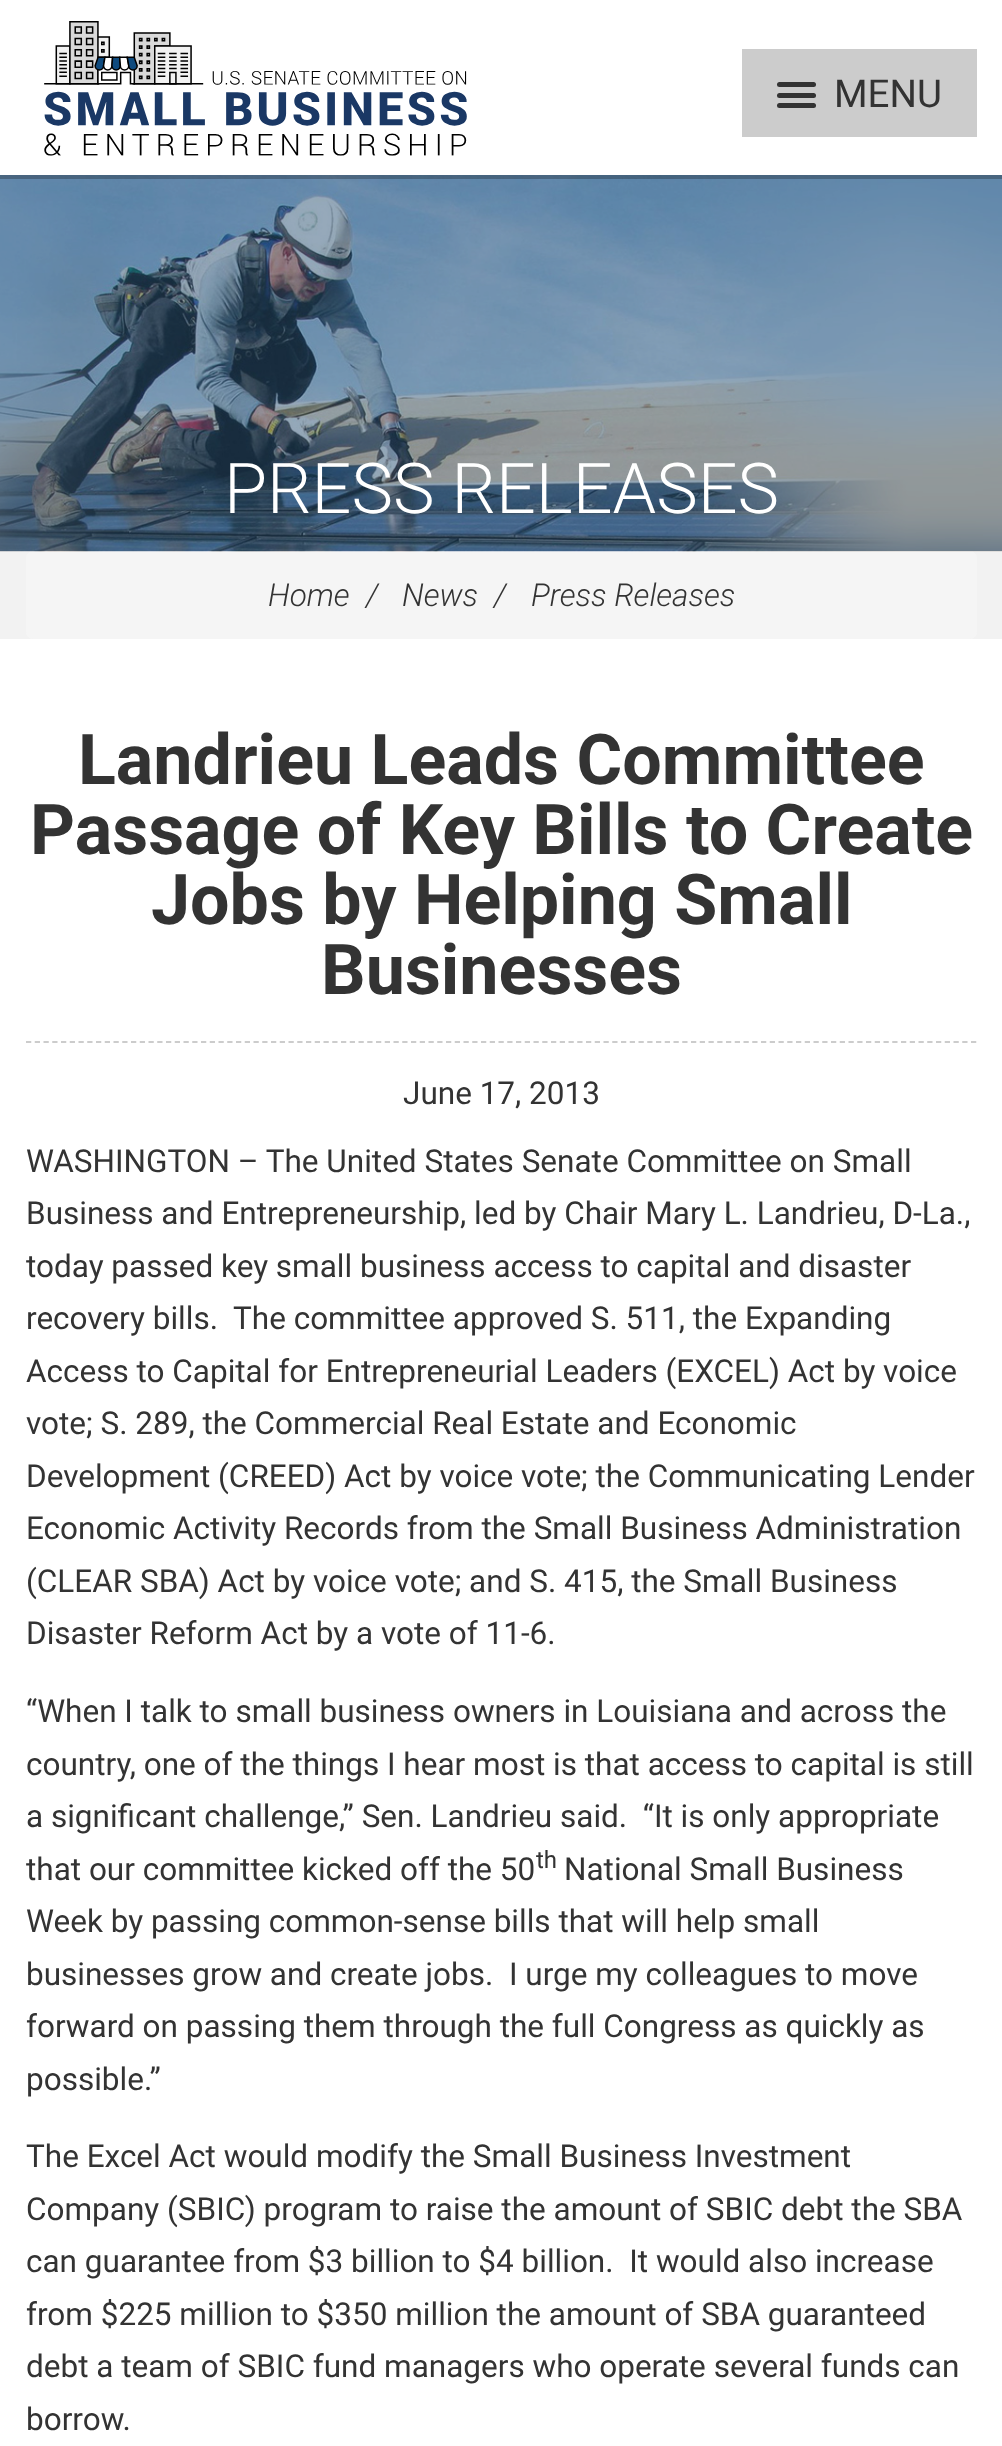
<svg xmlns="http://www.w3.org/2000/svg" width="1002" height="2446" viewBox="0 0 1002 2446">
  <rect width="100%" height="100%" fill="#f2f2f2"/>
  <rect x="26" y="551" width="951" height="88" rx="7" fill="#f5f5f5"/>
  <image x="0" y="175" width="1002" height="377" href="img/2.png"/>
  <path d="M0 175V179H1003V4V175Z" fill="#00000040"/>
  <path d="M0 0h1002v175H0z" fill="#fff"/>
  <image x="44" y="21" width="423" height="135" href="img/1.png"/>
  <path d="M742 49h235v88H742z" fill="#ccc"/>
  <rect x="777" y="93" width="39" height="5" rx="2.5" fill="#333"/>
  <rect x="777" y="82" width="39" height="5" rx="2.5" fill="#333"/>
  <rect x="777" y="103" width="39" height="5" rx="2.5" fill="#333"/>
  <path d="M0 639h1002v1807H0z" fill="#fff"/>
  <path d="M26 1042H976.5" fill="none" stroke="#ccc" stroke-width="1.8" stroke-dasharray="5.25 3.5"/>
  <text x="834" y="107" font-family="Roboto" font-size="38.5" fill="#333">MENU</text>
  <text x="224" y="513" font-family="Roboto" font-size="70" font-weight="300" fill="#fff">PRESS RELEASES</text>
  <g font-family="Roboto" font-size="31.5" font-weight="300" font-style="italic" fill="#333">
    <text x="268" y="606">Home</text>
    <text x="366" y="606">/</text>
    <text x="402" y="606">News</text>
    <text x="494" y="606">/</text>
    <text x="531" y="606">Press Releases</text>
  </g>
  <g font-family="Roboto" font-size="70" font-weight="bold" fill="#333">
    <text x="78" y="784">Landrieu Leads Committee</text>
    <text x="30" y="854">Passage of Key Bills to Create</text>
    <text x="151" y="924">Jobs by Helping Small</text>
    <text x="321" y="994">Businesses</text>
  </g>
  <g font-family="Roboto" font-size="31.5" fill="#333">
    <text x="403" y="1104">June 17, 2013</text>
    <text x="26" y="1172">WASHINGTON – The United States Senate Committee on Small</text>
    <text x="26" y="1224">Business and Entrepreneurship, led by Chair Mary L. Landrieu, D-La.,</text>
    <text x="26" y="1277">today passed key small business access to capital and disaster</text>
    <text x="26" y="1329" xml:space="preserve">recovery bills.  The committee approved S. 511, the Expanding</text>
    <text x="26" y="1382">Access to Capital for Entrepreneurial Leaders (EXCEL) Act by voice</text>
    <text x="26" y="1434">vote; S. 289, the Commercial Real Estate and Economic</text>
    <text x="26" y="1487">Development (CREED) Act by voice vote; the Communicating Lender</text>
    <text x="26" y="1539">Economic Activity Records from the Small Business Administration</text>
    <text x="26" y="1592">(CLEAR SBA) Act by voice vote; and S. 415, the Small Business</text>
    <text x="26" y="1644">Disaster Reform Act by a vote of 11-6.</text>
    <text x="26" y="1722">“When I talk to small business owners in Louisiana and across the</text>
    <text x="26" y="1775">country, one of the things I hear most is that access to capital is still</text>
    <text x="26" y="1827" xml:space="preserve">a significant challenge,” Sen. Landrieu said.  “It is only appropriate</text>
    <text x="26" y="1880">that our committee kicked off the 50</text>
  </g>
  <text x="536" y="1868" font-family="Roboto" font-size="24" fill="#333">th</text>
  <g font-family="Roboto" font-size="31.5" fill="#333">
    <text x="564" y="1880">National Small Business</text>
    <text x="26" y="1932">Week by passing common-sense bills that will help small</text>
    <text x="26" y="1985" xml:space="preserve">businesses grow and create jobs.  I urge my colleagues to move</text>
    <text x="26" y="2037">forward on passing them through the full Congress as quickly as</text>
    <text x="26" y="2090">possible.”</text>
    <text x="26" y="2167">The Excel Act would modify the Small Business Investment</text>
    <text x="26" y="2220">Company (SBIC) program to raise the amount of SBIC debt the SBA</text>
    <text x="26" y="2272" xml:space="preserve">can guarantee from $3 billion to $4 billion.  It would also increase</text>
    <text x="26" y="2325">from $225 million to $350 million the amount of SBA guaranteed</text>
    <text x="26" y="2377">debt a team of SBIC fund managers who operate several funds can</text>
    <text x="26" y="2430">borrow.</text>
  </g>
</svg>
